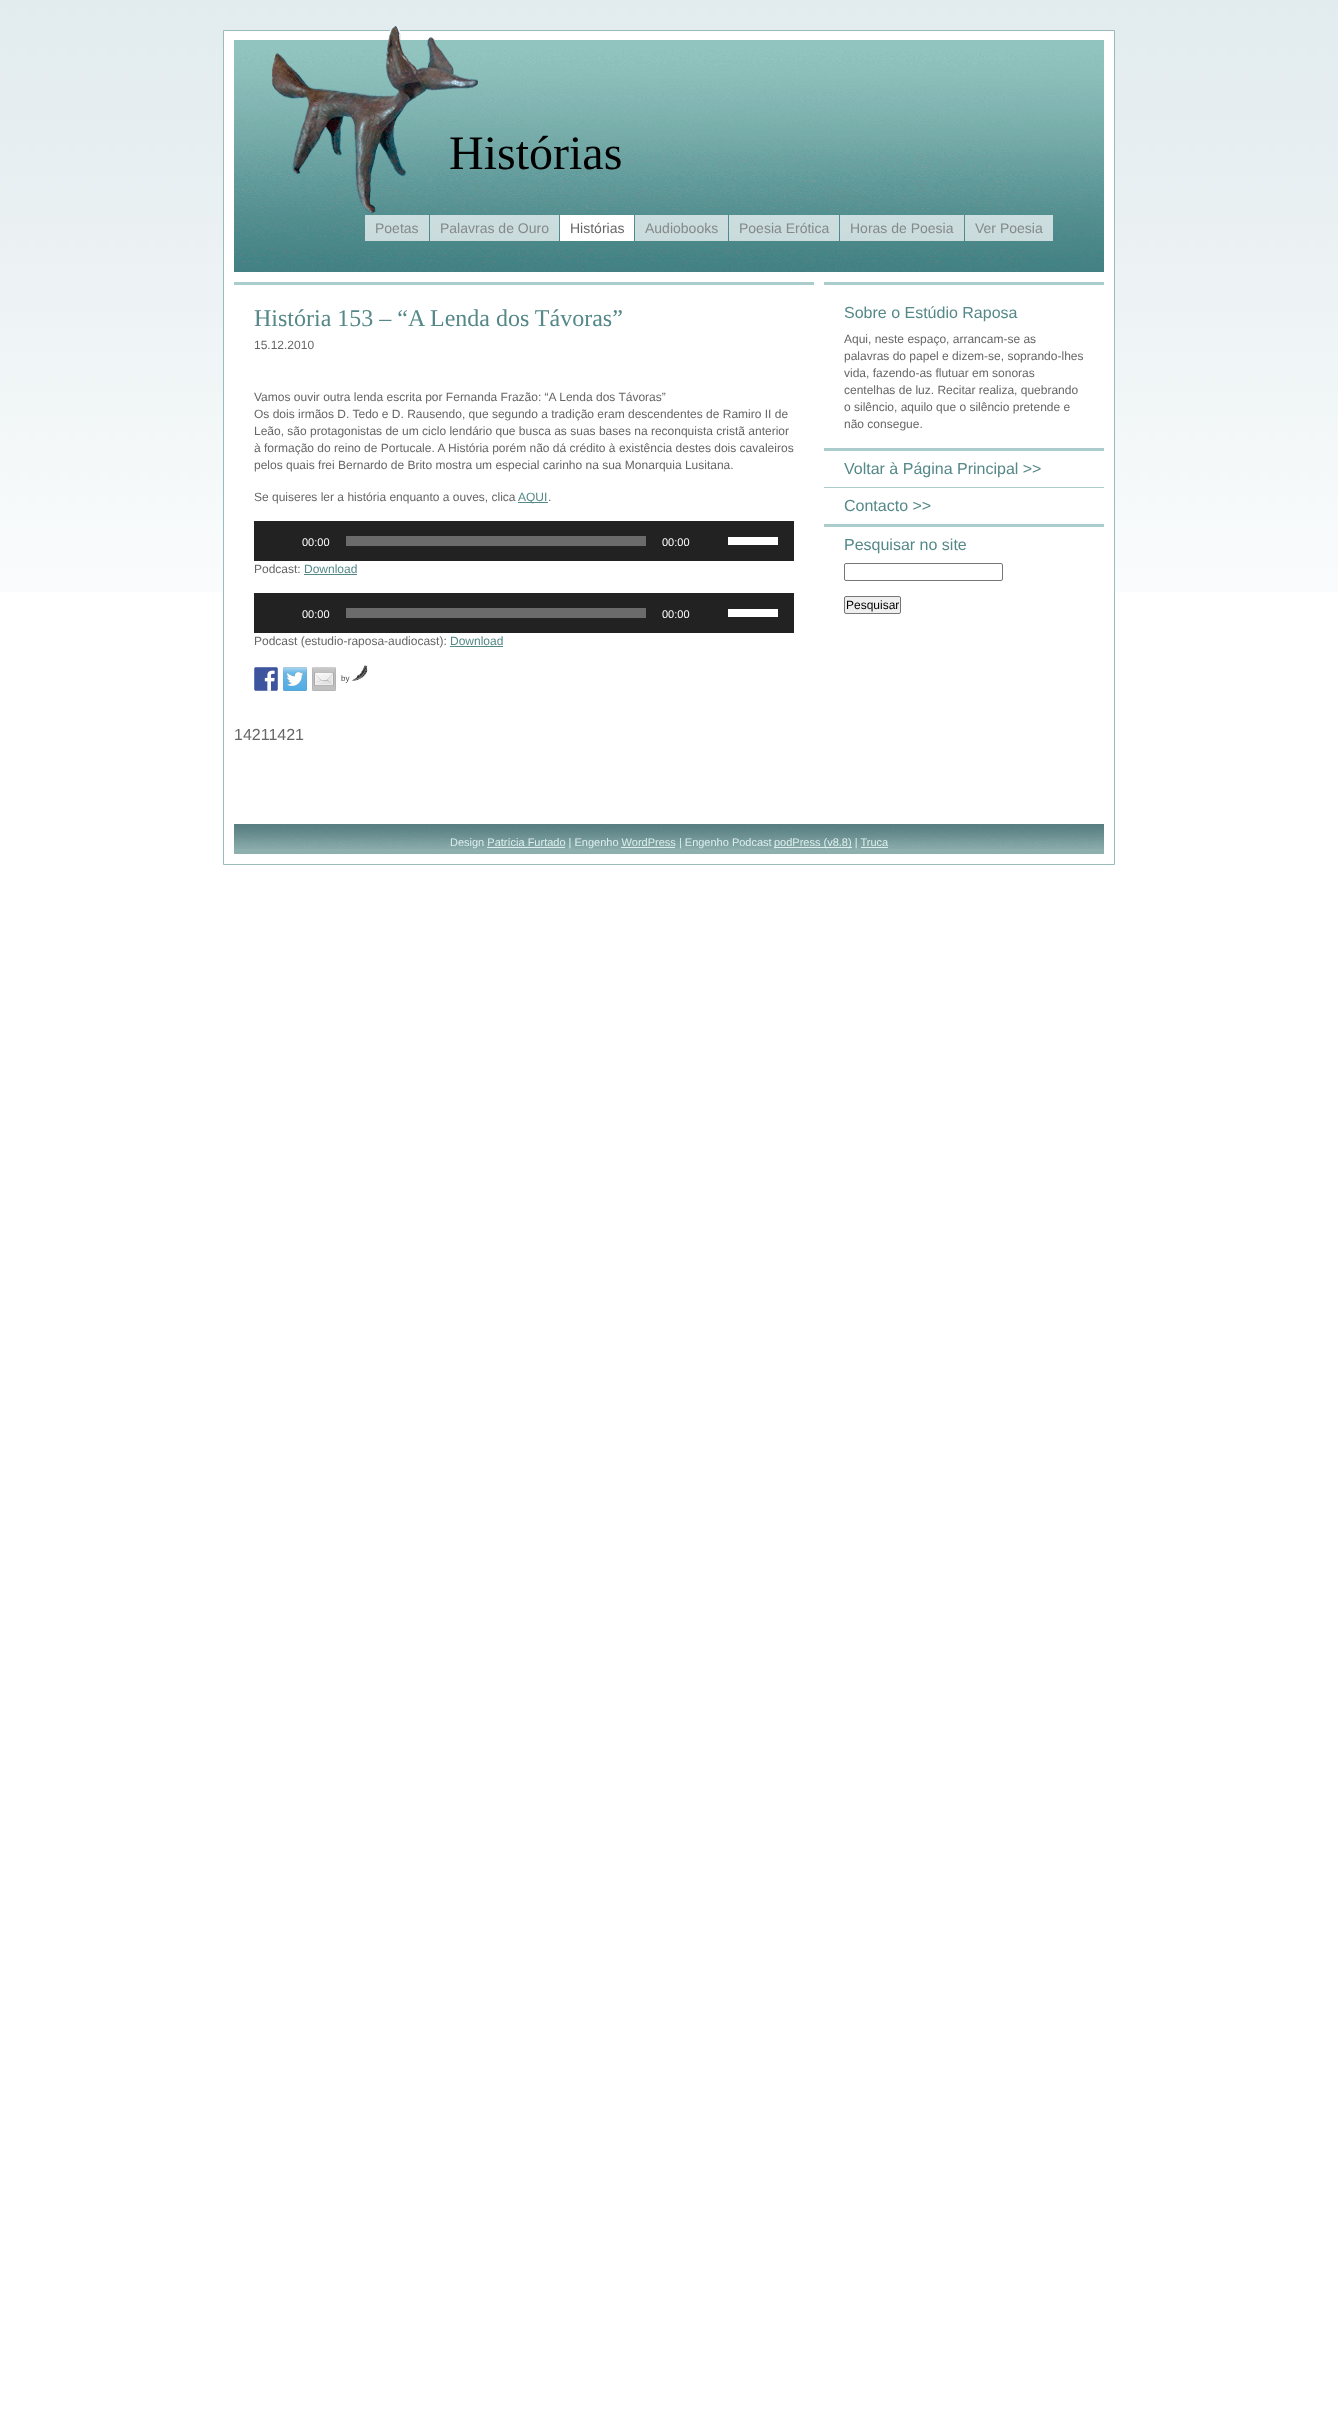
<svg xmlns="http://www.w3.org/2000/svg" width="1338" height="2434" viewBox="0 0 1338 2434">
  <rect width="100%" height="100%" fill="#fff"/>
  <image x="0" y="0" width="1338" height="592" href="img/1.png"/>
  <path d="M224 31h890v561H224z" fill="#fff"/>
  <path d="M223.5 30.5h891v834H223.5z" fill="none" stroke="#9bb"/>
  <image x="234" y="26" width="870" height="246" href="img/2.png"/>
  <path d="M365 215h64v26H365z" fill="#ffffffb3"/>
  <path d="M430 215h129v26H430z" fill="#ffffffb3"/>
  <path d="M560 215h74v26H560z" fill="#fff"/>
  <path d="M635 215h93v26H635z" fill="#ffffffb3"/>
  <path d="M729 215h110v26H729z" fill="#ffffffb3"/>
  <path d="M840 215h124v26H840z" fill="#ffffffb3"/>
  <path d="M965 215h88v26H965z" fill="#ffffffb3"/>
  <path d="M234 282h580v3H234z" fill="#acc"/>
  <path d="M518 502h30v1H518z" fill="#588"/>
  <path d="M254 521h540v40H254z" fill="#222"/>
  <path d="M346 536h300v10H346z" fill="#6b6b6b"/>
  <path d="M728 537h50v8H728z" fill="#fff"/>
  <path d="M304 574h53v1H304z" fill="#588"/>
  <path d="M254 593h540v40H254z" fill="#222"/>
  <path d="M346 608h300v10H346z" fill="#6b6b6b"/>
  <path d="M728 609h50v8H728z" fill="#fff"/>
  <path d="M450 646h53v1H450z" fill="#588"/>
  <image x="254" y="667" width="24" height="24" href="img/3.png"/>
  <image x="283" y="667" width="24" height="24" href="img/4.png"/>
  <image x="312" y="667" width="24" height="24" href="img/5.png"/>
  <image x="352" y="665" width="16" height="16" href="img/6.png"/>
  <path d="M824 282h280v3H824z" fill="#acc"/>
  <path d="M824 448h280v3H824z" fill="#acc"/>
  <path d="M824 487h280v1H824z" fill="#acc"/>
  <path d="M824 524h280v3H824z" fill="#acc"/>
  <rect x="844.5" y="563.5" width="158" height="17" rx="1.5" fill="none" stroke="#767676"/>
  <rect x="844.5" y="596.5" width="56" height="17" rx="1.5" fill="#efefef" stroke="#767676"/>
  <path d="M234 849h870v5H234z" fill="#8dafad"/>
  <image x="234" y="824" width="870" height="25" href="img/7.png"/>
  <path d="M774 847h78v1H774z" fill="#dee"/>
  <path d="M487 847h78v1H487z" fill="#dee"/>
  <path d="M621 847h54v1H621z" fill="#dee"/>
  <path d="M861 847h27v1H861z" fill="#dee"/>
  <text x="449" y="169" font-family="Liberation Serif" font-size="48" fill="#000">Histórias</text>
  <g font-family="Liberation Sans" font-size="14" fill="#84898a">
    <text x="375" y="233">Poetas</text>
    <text x="440" y="233">Palavras de Ouro</text>
  </g>
  <text x="570" y="233" font-family="Liberation Sans" font-size="14" fill="#666">Histórias</text>
  <g font-family="Liberation Sans" font-size="14" fill="#84898a">
    <text x="645" y="233">Audiobooks</text>
    <text x="739" y="233">Poesia Erótica</text>
    <text x="850" y="233">Horas de Poesia</text>
    <text x="975" y="233">Ver Poesia</text>
  </g>
  <text x="254" y="326" font-family="Liberation Serif" font-size="24" fill="#588">História 153 – “A Lenda dos Távoras”</text>
  <g font-family="Liberation Sans" font-size="12" fill="#666">
    <text x="254" y="349">15.12.2010</text>
    <text x="254" y="401">Vamos ouvir outra lenda escrita por Fernanda Frazão: “A Lenda dos Távoras”</text>
    <text x="254" y="418">Os dois irmãos D. Tedo e D. Rausendo, que segundo a tradição eram descendentes de Ramiro II de</text>
    <text x="254" y="435">Leão, são protagonistas de um ciclo lendário que busca as suas bases na reconquista cristã anterior</text>
    <text x="254" y="452">à formação do reino de Portucale. A História porém não dá crédito à existência destes dois cavaleiros</text>
    <text x="254" y="469">pelos quais frei Bernardo de Brito mostra um especial carinho na sua Monarquia Lusitana.</text>
    <text x="254" y="501">Se quiseres ler a história enquanto a ouves, clica</text>
  </g>
  <text x="518" y="501" font-family="Liberation Sans" font-size="12" fill="#588">AQUI</text>
  <text x="548" y="501" font-family="Liberation Sans" font-size="12" fill="#666">.</text>
  <g font-family="Liberation Sans" font-size="11" fill="#fff">
    <text x="302" y="546">00:00</text>
    <text x="662" y="546">00:00</text>
  </g>
  <text x="254" y="573" font-family="Liberation Sans" font-size="12" fill="#666">Podcast:</text>
  <text x="304" y="573" font-family="Liberation Sans" font-size="12" fill="#588">Download</text>
  <g font-family="Liberation Sans" font-size="11" fill="#fff">
    <text x="302" y="618">00:00</text>
    <text x="662" y="618">00:00</text>
  </g>
  <text x="254" y="645" font-family="Liberation Sans" font-size="12" fill="#666">Podcast (estudio-raposa-audiocast):</text>
  <text x="450" y="645" font-family="Liberation Sans" font-size="12" fill="#588">Download</text>
  <text x="341" y="681" font-family="Liberation Sans" font-size="8" fill="#444">by</text>
  <text x="234" y="740" font-family="Liberation Sans" font-size="16" fill="#666">14211421</text>
  <text x="844" y="318" font-family="Liberation Sans" font-size="16" fill="#588">Sobre o Estúdio Raposa</text>
  <g font-family="Liberation Sans" font-size="12" fill="#666">
    <text x="844" y="343">Aqui, neste espaço, arrancam-se as</text>
    <text x="844" y="360">palavras do papel e dizem-se, soprando-lhes</text>
    <text x="844" y="377">vida, fazendo-as flutuar em sonoras</text>
    <text x="844" y="394">centelhas de luz. Recitar realiza, quebrando</text>
    <text x="844" y="411">o silêncio, aquilo que o silêncio pretende e</text>
    <text x="844" y="428">não consegue.</text>
  </g>
  <g font-family="Liberation Sans" font-size="16" fill="#588">
    <text x="844" y="474">Voltar à Página Principal &gt;&gt;</text>
    <text x="844" y="511">Contacto &gt;&gt;</text>
    <text x="844" y="550">Pesquisar no site</text>
  </g>
  <text x="846" y="609" font-family="Liberation Sans" font-size="12" fill="#000">Pesquisar</text>
  <g font-family="Liberation Sans" font-size="11" fill="#dee">
    <text x="450" y="846">Design Patrícia Furtado | Engenho WordPress | Engenho Podcast</text>
    <text x="774" y="846">podPress (v8.8) | Truca</text>
  </g>
</svg>
